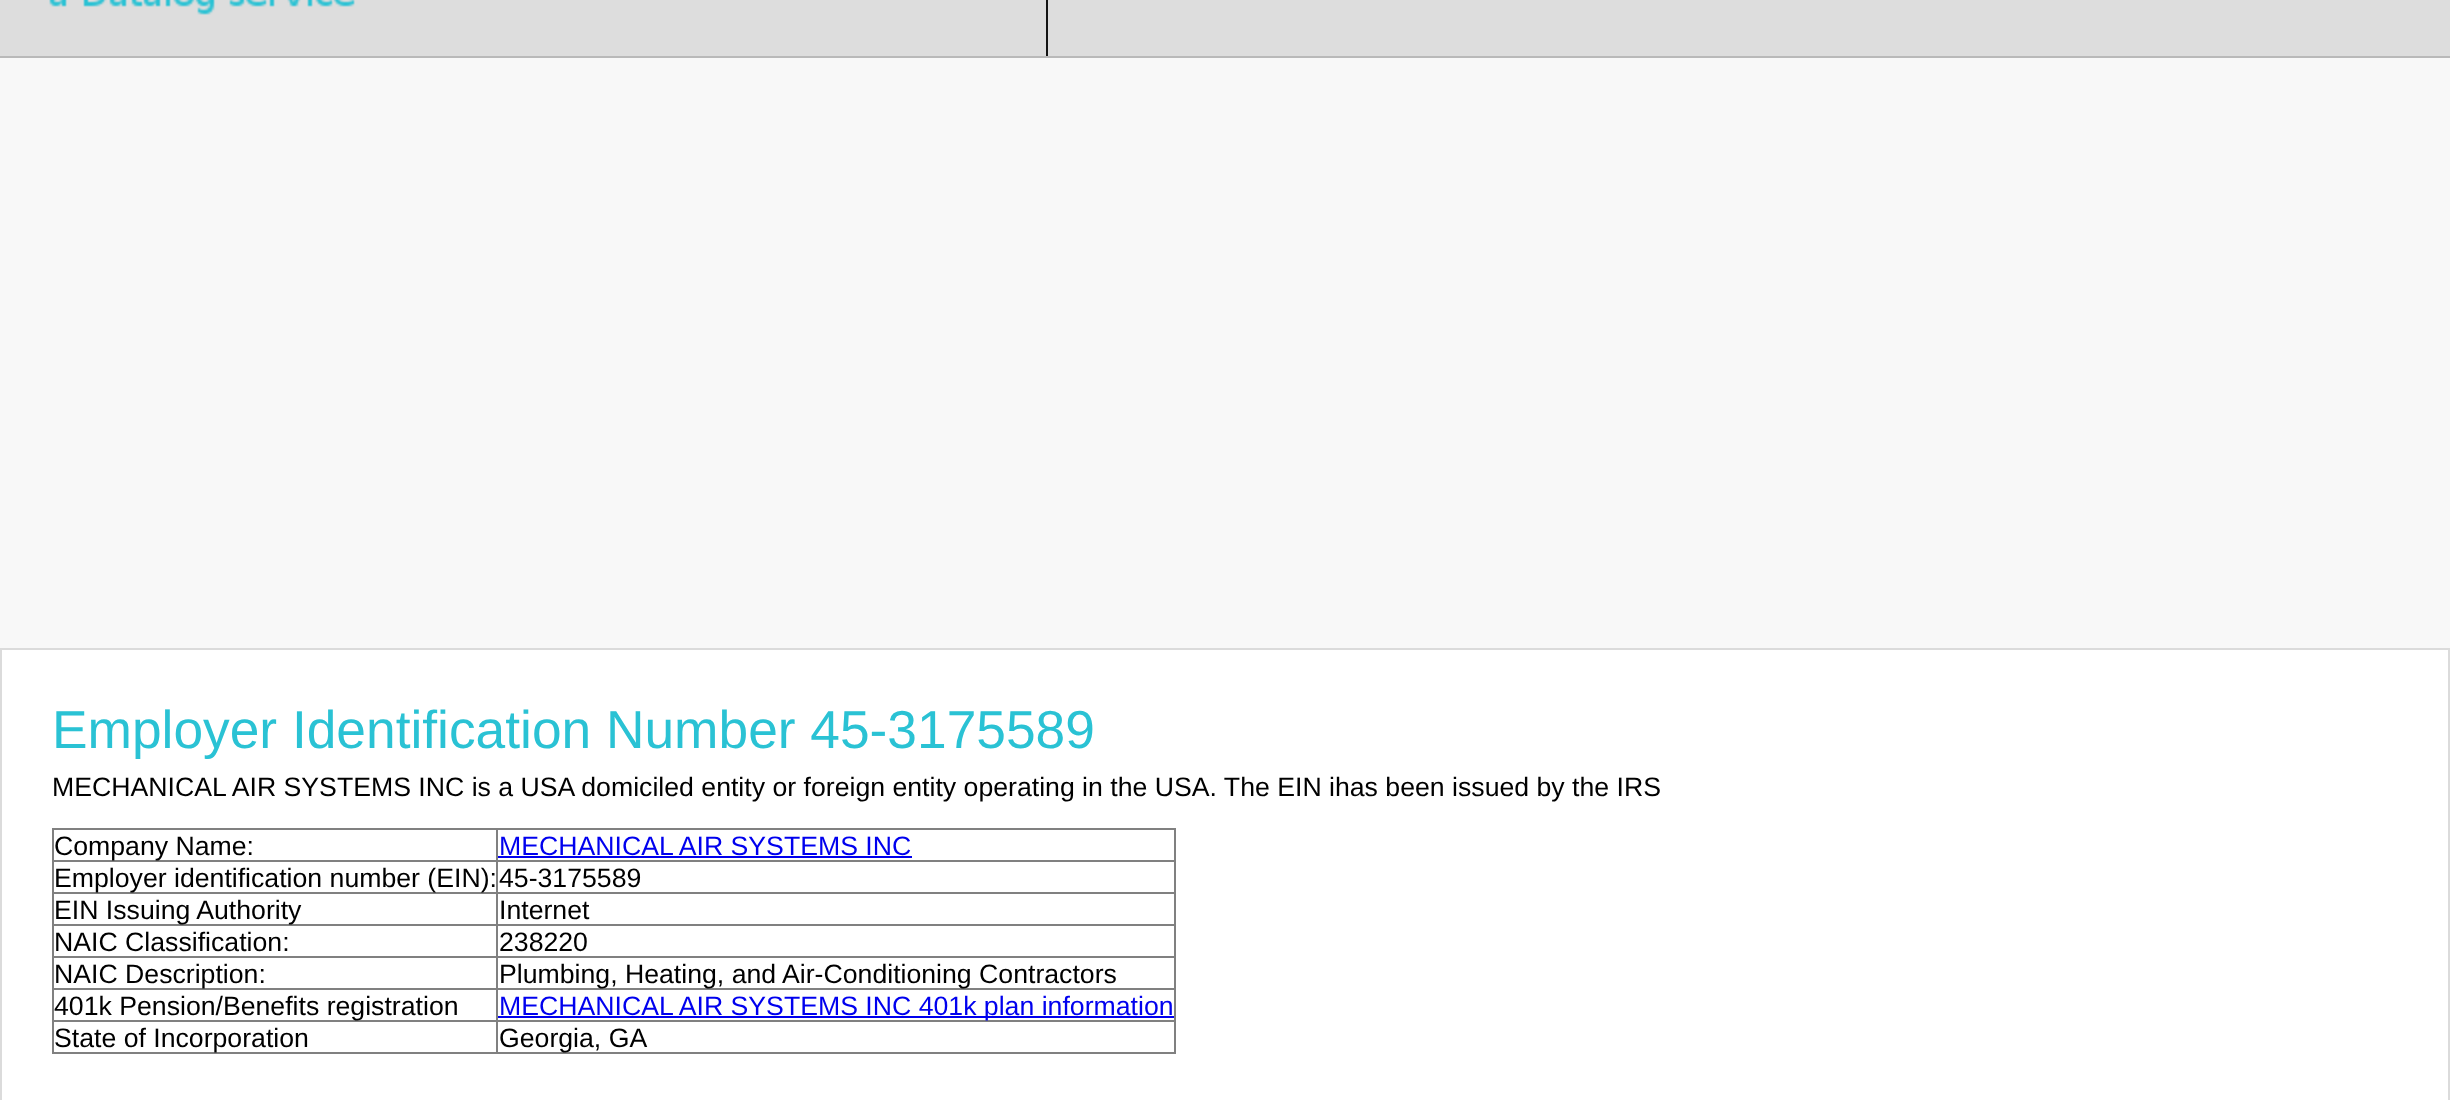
<svg xmlns="http://www.w3.org/2000/svg" width="2450" height="1100" viewBox="0 0 2450 1100">
  <rect width="100%" height="100%" fill="#f8f8f8"/>
  <path d="M0 0h2450v56H0z" fill="#ddd"/>
  <path d="M0 56h2450v2H0z" fill="#b9b9b9"/>
  <image x="49" y="0" width="306" height="15" href="img/1.png"/>
  <path d="M1046 0h2v56H1046z" fill="#131313"/>
  <path d="M1 649h2448v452H1z" fill="#fff" stroke="#dbdbdb" stroke-width="2"/>
  <path d="M52 828h1124v2H52z" fill="#808080"/>
  <path d="M1174 828h2v226H1174z" fill="#808080"/>
  <path d="M52 1052h1124v2H52z" fill="#808080"/>
  <path d="M52 828h2v226H52z" fill="#808080"/>
  <path d="M496 860h680v2H496z" fill="#808080"/>
  <path d="M496 892h680v2H496z" fill="#808080"/>
  <path d="M496 924h680v2H496z" fill="#808080"/>
  <path d="M496 956h680v2H496z" fill="#808080"/>
  <path d="M496 988h680v2H496z" fill="#808080"/>
  <path d="M496 1020h680v2H496z" fill="#808080"/>
  <path d="M496 1020h2v34H496z" fill="#808080"/>
  <path d="M52 1020h446v2H52z" fill="#808080"/>
  <path d="M496 988h2v34H496z" fill="#808080"/>
  <path d="M52 988h446v2H52z" fill="#808080"/>
  <path d="M496 956h2v34H496z" fill="#808080"/>
  <path d="M52 956h446v2H52z" fill="#808080"/>
  <path d="M496 924h2v34H496z" fill="#808080"/>
  <path d="M52 924h446v2H52z" fill="#808080"/>
  <path d="M496 892h2v34H496z" fill="#808080"/>
  <path d="M52 892h446v2H52z" fill="#808080"/>
  <path d="M496 860h2v34H496z" fill="#808080"/>
  <path d="M52 860h446v2H52z" fill="#808080"/>
  <path d="M496 828h2v34H496z" fill="#808080"/>
  <path d="M498 856h414v2H498z" fill="#00e"/>
  <path d="M498 1016h676v2H498z" fill="#00e"/>
  <text x="52" y="748" font-family="Liberation Sans" font-size="53.3" fill="#2ac2d4">Employer Identification Number 45-3175589</text>
  <g font-family="Liberation Sans" font-size="26.67" fill="#000">
    <text x="52" y="796">MECHANICAL AIR SYSTEMS INC is a USA domiciled entity or foreign entity operating in the USA. The EIN ihas been issued by the IRS</text>
    <text x="54" y="855">Company Name:</text>
  </g>
  <text x="499" y="855" font-family="Liberation Sans" font-size="26.67" fill="#00e">MECHANICAL AIR SYSTEMS INC</text>
  <g font-family="Liberation Sans" font-size="26.67" fill="#000">
    <text x="54" y="887">Employer identification number (EIN):</text>
    <text x="499" y="887">45-3175589</text>
    <text x="54" y="919">EIN Issuing Authority</text>
    <text x="499" y="919">Internet</text>
    <text x="54" y="951">NAIC Classification:</text>
    <text x="499" y="951">238220</text>
    <text x="54" y="983">NAIC Description:</text>
    <text x="499" y="983">Plumbing, Heating, and Air-Conditioning Contractors</text>
    <text x="54" y="1015">401k Pension/Benefits registration</text>
  </g>
  <text x="499" y="1015" font-family="Liberation Sans" font-size="26.67" fill="#00e">MECHANICAL AIR SYSTEMS INC 401k plan information</text>
  <g font-family="Liberation Sans" font-size="26.67" fill="#000">
    <text x="54" y="1047">State of Incorporation</text>
    <text x="499" y="1047">Georgia, GA</text>
  </g>
</svg>
